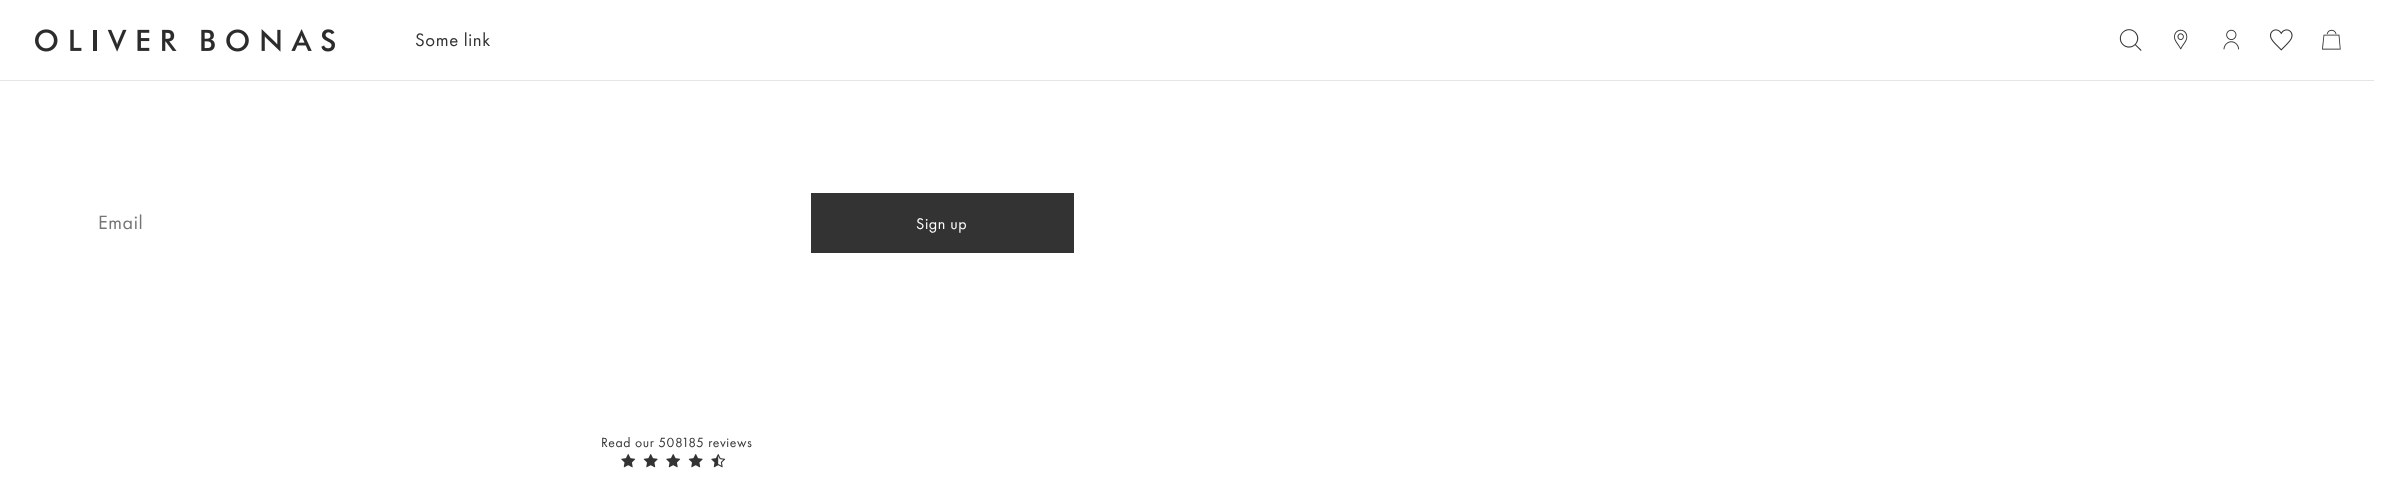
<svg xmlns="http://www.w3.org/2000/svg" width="2392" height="497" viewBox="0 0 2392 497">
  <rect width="100%" height="100%" fill="#fff"/>
  <image x="35" y="29" width="300" height="23" href="img/1.png"/>
  <image x="2119" y="29" width="23" height="22" href="img/2.png"/>
  <image x="2174" y="29" width="14" height="21" href="img/3.png"/>
  <image x="2223" y="29" width="17" height="21" href="img/4.png"/>
  <image x="2269" y="29" width="24" height="22" href="img/5.png"/>
  <image x="2322" y="29" width="19" height="21" href="img/6.png"/>
  <path d="M0 80h2374v1H0z" fill="#e5e5e5"/>
  <path d="M811 193h263v60H811z" fill="#333"/>
  <image x="621" y="454" width="15" height="14" href="img/7.png"/>
  <image x="643" y="454" width="15" height="14" href="img/8.png"/>
  <image x="666" y="454" width="15" height="14" href="img/7.png"/>
  <image x="688" y="454" width="15" height="14" href="img/8.png"/>
  <image x="711" y="454" width="15" height="14" href="img/9.png"/>
  <text x="415" y="46" font-family="Futura PT" font-size="18.75" letter-spacing="0.6" fill="#333">Some link</text>
  <text x="98" y="229" font-family="Futura PT" font-size="20" letter-spacing="0.6" fill="#757575">Email</text>
  <text x="916" y="229" font-family="Futura PT" font-size="16" letter-spacing="0.6" fill="#fff">Sign up</text>
  <text x="601" y="447" font-family="Futura PT" font-size="13.75" letter-spacing="0.6" fill="#333">Read our 508185 reviews</text>
</svg>
